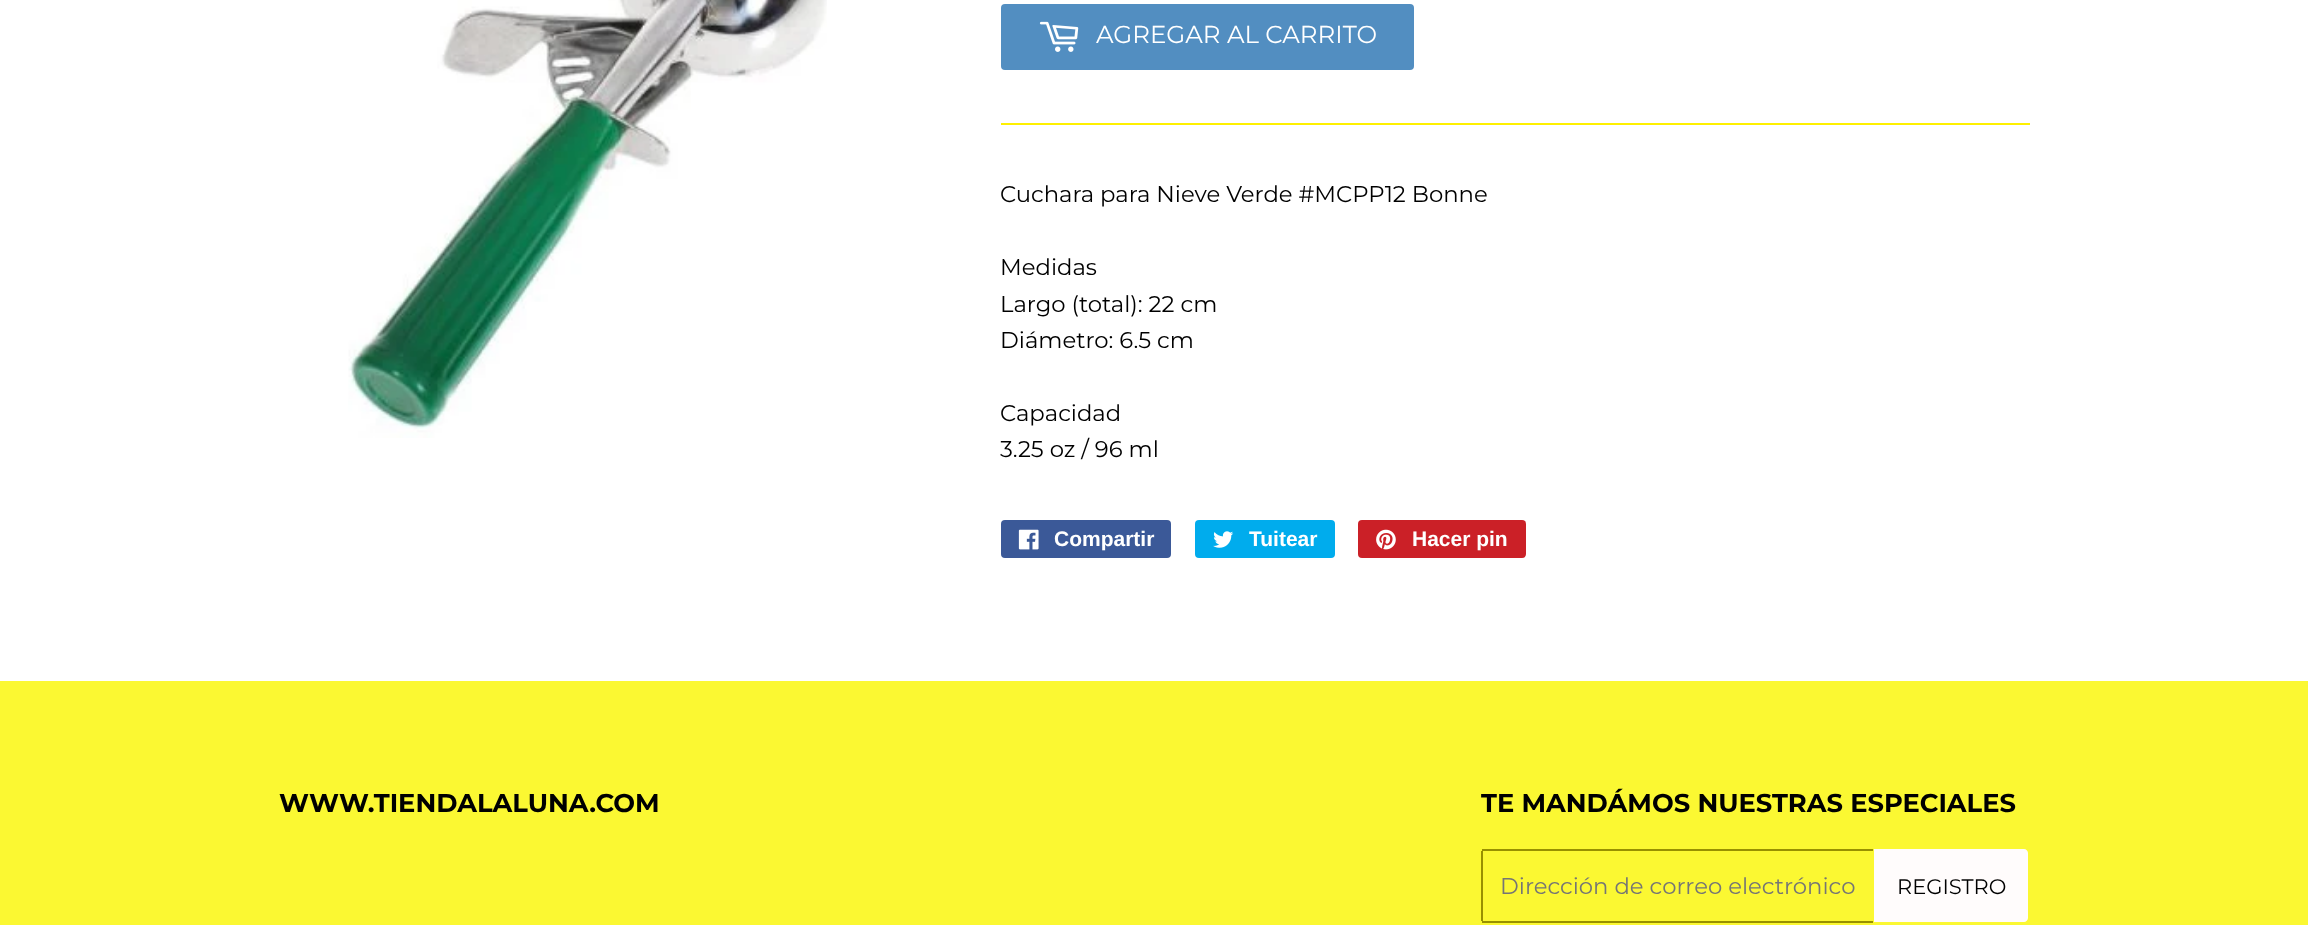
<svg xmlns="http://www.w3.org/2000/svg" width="2308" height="925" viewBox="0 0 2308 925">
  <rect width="100%" height="100%" fill="#fff"/>
  <image x="348" y="0" width="479" height="438" href="img/1.png"/>
  <rect x="1001" y="4" width="413" height="66" rx="4" fill="#528ec1"/>
  <image x="1039" y="21" width="40" height="31" href="img/2.png"/>
  <path d="M1001 123h1029v2H1001z" fill="#fef000"/>
  <rect x="1001" y="520" width="170" height="38" rx="4" fill="#3b5998"/>
  <image x="1018" y="529" width="21" height="21" href="img/3.png"/>
  <rect x="1195" y="520" width="140" height="38" rx="4" fill="#00aced"/>
  <image x="1213" y="531" width="21" height="17" href="img/4.png"/>
  <rect x="1358" y="520" width="168" height="38" rx="4" fill="#cb2027"/>
  <image x="1376" y="529" width="20" height="21" href="img/5.png"/>
  <path d="M0 681h2308v244H0z" fill="#fbf832"/>
  <path d="M1482 849h391v2H1482z" fill="#989000"/>
  <path d="M1482 921h391v2H1482z" fill="#989000"/>
  <path d="M1481 851h2v70H1481z" fill="#989000"/>
  <path d="M1874 849H2024C2026 849 2028 851 2028 853V918C2028 920 2026 922 2024 922H1874Z" fill="#fffcfc"/>
  <text x="1096" y="43" font-family="Montserrat" font-size="24.5" fill="#fff">AGREGAR AL CARRITO</text>
  <g font-family="Montserrat" font-size="22.75" fill="#000">
    <text x="1000" y="202">Cuchara para Nieve Verde #MCPP12 Bonne</text>
    <text x="1000" y="275">Medidas</text>
    <text x="1000" y="312">Largo (total): 22 cm</text>
    <text x="1000" y="348">Diámetro: 6.5 cm</text>
    <text x="1000" y="421">Capacidad</text>
    <text x="1000" y="457">3.25 oz / 96 ml</text>
  </g>
  <g font-family="Liberation Sans" font-size="21" font-weight="bold" fill="#fff">
    <text x="1054" y="546">Compartir</text>
    <text x="1249" y="546">Tuitear</text>
    <text x="1412" y="546">Hacer pin</text>
  </g>
  <g font-family="Montserrat" font-size="25.75" font-weight="bold" fill="#000">
    <text x="279" y="812">WWW.TIENDALALUNA.COM</text>
    <text x="1481" y="812">TE MANDÁMOS NUESTRAS ESPECIALES</text>
  </g>
  <text x="1500" y="894" font-family="Montserrat" font-size="22.75" fill="#757575">Dirección de correo electrónico</text>
  <text x="1897" y="894" font-family="Montserrat" font-size="21" fill="#000">REGISTRO</text>
</svg>
